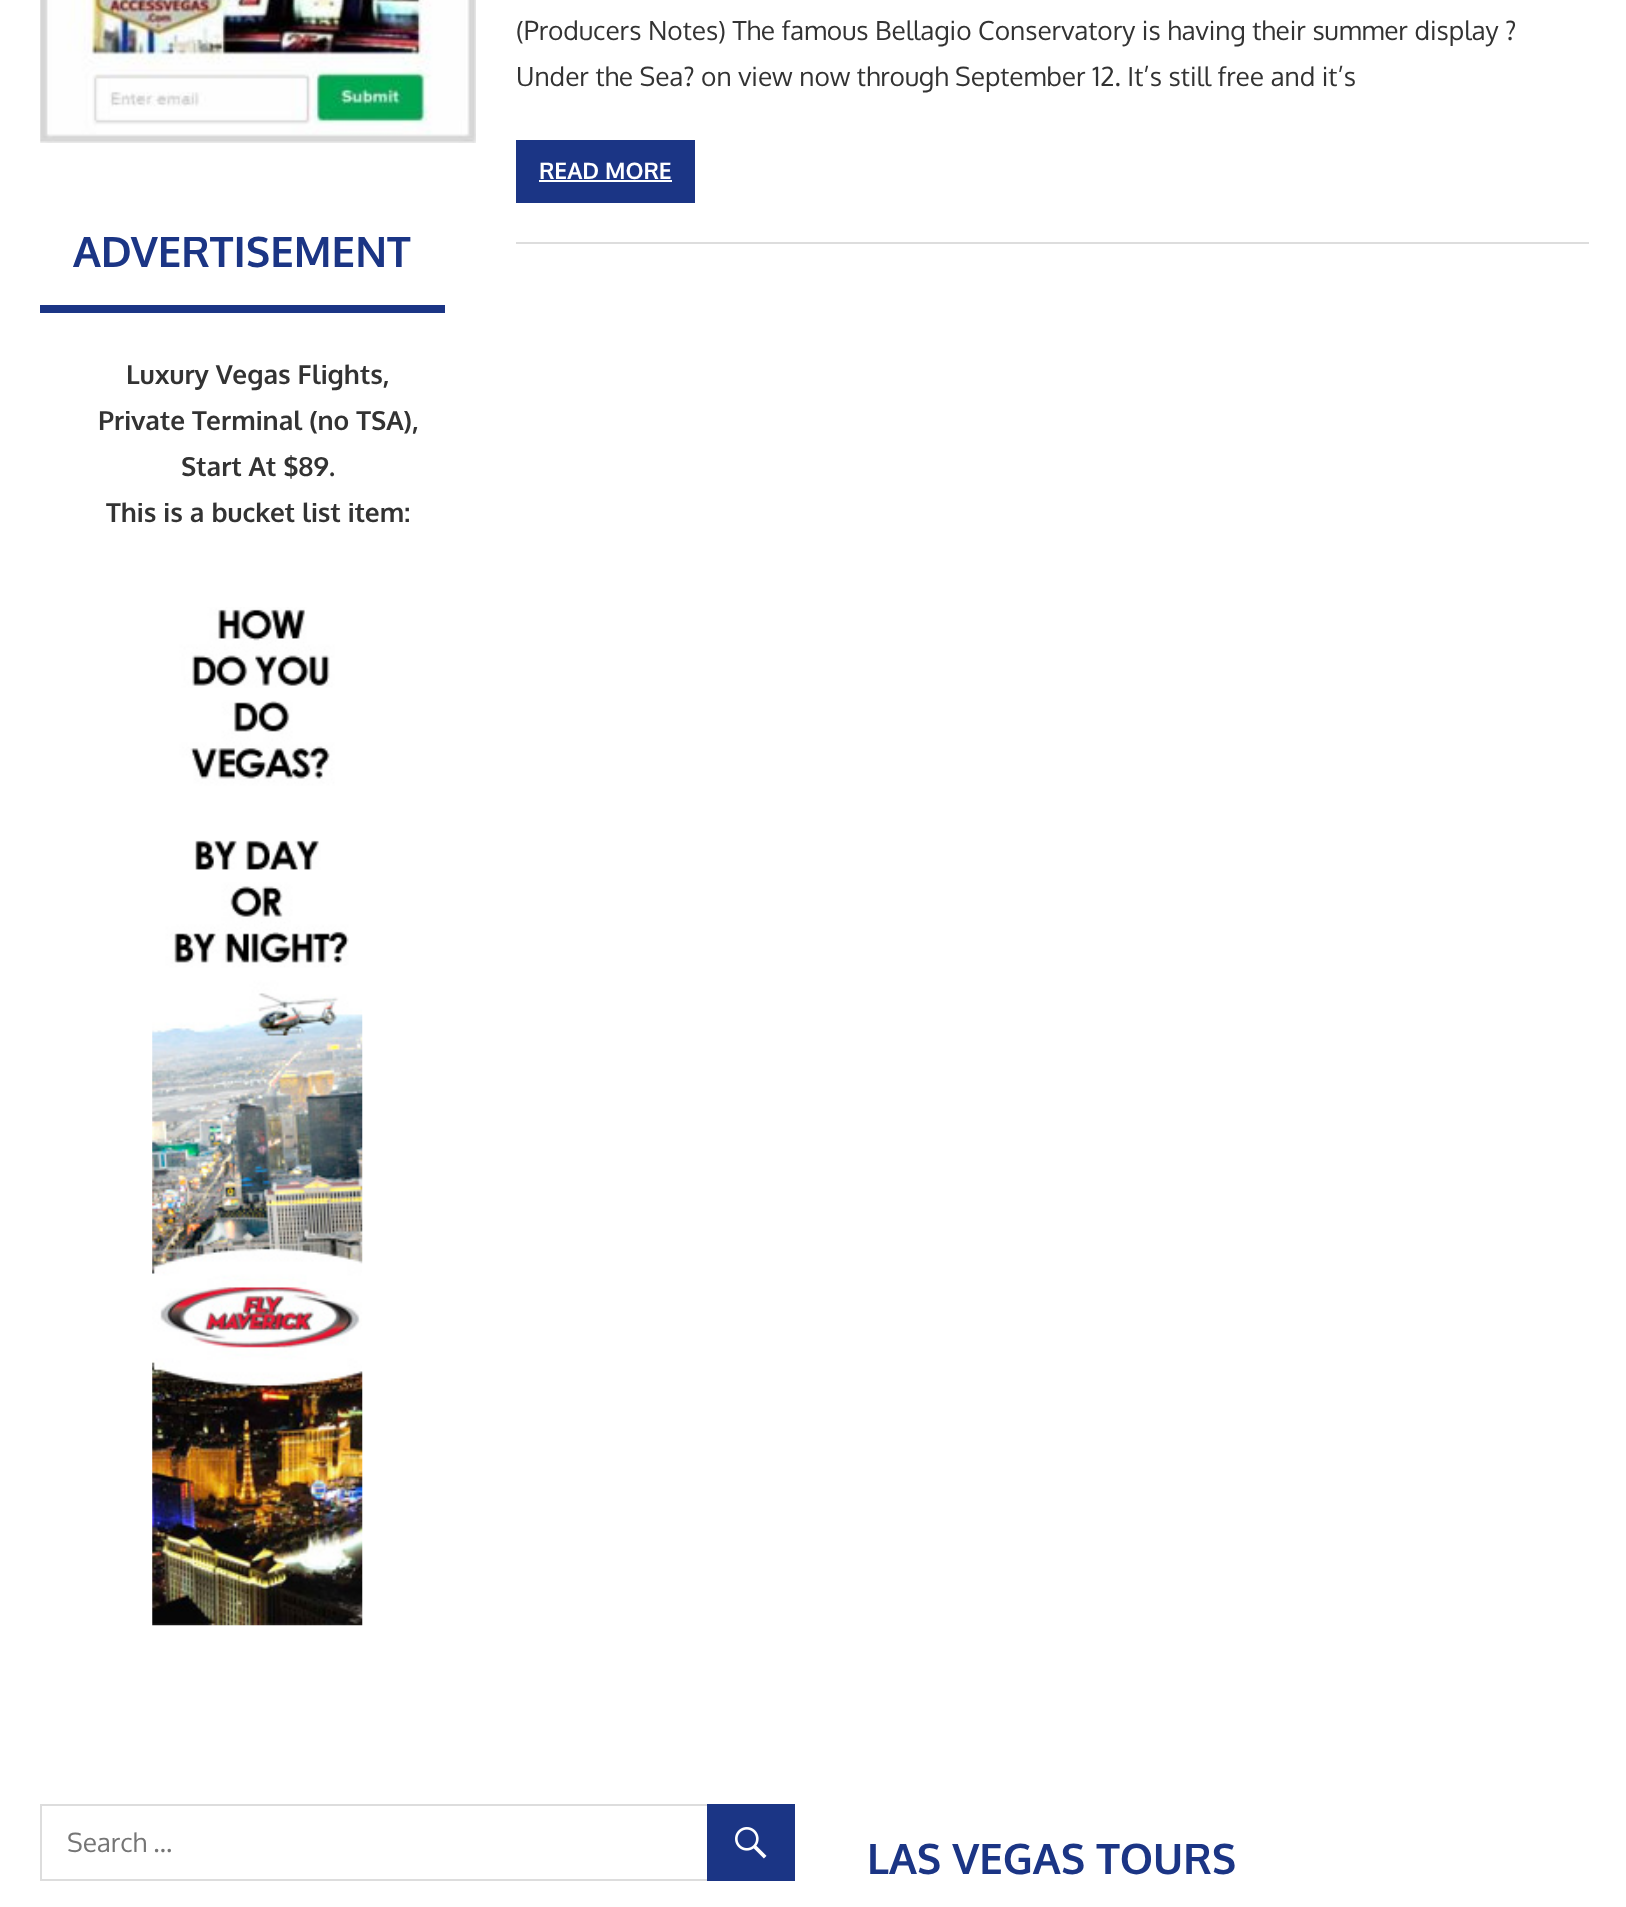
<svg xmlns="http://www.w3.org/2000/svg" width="1626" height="1907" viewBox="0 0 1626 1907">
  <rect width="100%" height="100%" fill="#fff"/>
  <path d="M516 242h1073v2H516z" fill="#ddd"/>
  <path d="M516 140h179v63H516z" fill="#1b3585"/>
  <path d="M539 180h133v2H539z" fill="#fff"/>
  <image x="40" y="0" width="436" height="143" href="img/1.png"/>
  <path d="M40 305h405v8H40z" fill="#1b3585"/>
  <image x="152" y="607" width="211" height="1019" href="img/2.png"/>
  <path d="M41 1805h753v75H41z" fill="none" stroke="#ddd" stroke-width="2"/>
  <path d="M707 1804h88v77H707z" fill="#1b3585"/>
  <image x="735" y="1827" width="32" height="32" href="img/3.png"/>
  <g font-family="Oxygen" font-size="26.25" fill="#333">
    <text x="516" y="40">(Producers Notes) The famous Bellagio Conservatory is having their summer display ?</text>
    <text x="516" y="86">Under the Sea? on view now through September 12. It’s still free and it’s</text>
  </g>
  <text x="539" y="179" font-family="Oxygen" font-size="22.75" font-weight="bold" fill="#fff">READ MORE</text>
  <text x="73" y="267" font-family="Oxygen" font-size="42" font-weight="bold" fill="#1b3585">ADVERTISEMENT</text>
  <g font-family="Oxygen" font-size="26.25" font-weight="bold" fill="#333">
    <text x="126" y="384">Luxury Vegas Flights,</text>
    <text x="98" y="430">Private Terminal (no TSA),</text>
    <text x="181" y="476">Start At $89.</text>
    <text x="106" y="522">This is a bucket list item:</text>
  </g>
  <text x="67" y="1852" font-family="Oxygen" font-size="26.25" fill="#757575">Search …</text>
  <text x="867" y="1874" font-family="Oxygen" font-size="42" font-weight="bold" fill="#1b3585">LAS VEGAS TOURS</text>
</svg>
